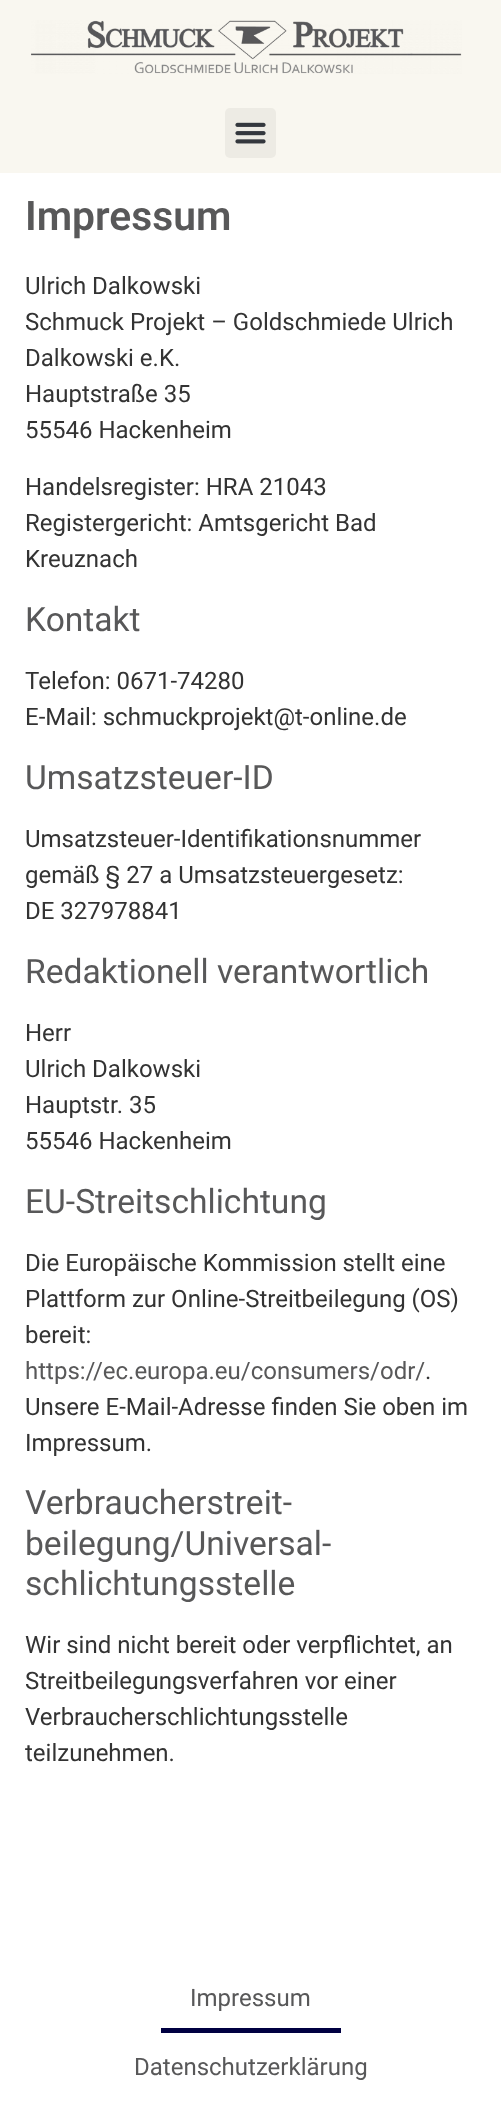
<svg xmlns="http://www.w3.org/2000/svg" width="501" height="2116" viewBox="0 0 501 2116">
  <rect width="100%" height="100%" fill="#fff"/>
  <path d="M0 0h501v173H0z" fill="#f9f7f0"/>
  <image x="31" y="20" width="431" height="54" href="img/1.png"/>
  <rect x="225" y="108" width="51" height="50" rx="5" fill="#edebe4"/>
  <image x="235" y="122" width="31" height="22" href="img/2.png"/>
  <path d="M161 2028h180v5H161z" fill="#000041"/>
  <text x="25" y="230" font-family="Roboto" font-size="40.75" font-weight="600" fill="#585859">Impressum</text>
  <g font-family="Roboto" font-size="24" fill="#333">
    <text x="25" y="294">Ulrich Dalkowski</text>
    <text x="25" y="330">Schmuck Projekt – Goldschmiede Ulrich</text>
    <text x="25" y="366">Dalkowski e.K.</text>
    <text x="25" y="402">Hauptstraße 35</text>
    <text x="25" y="438">55546 Hackenheim</text>
    <text x="25" y="495">Handelsregister: HRA 21043</text>
    <text x="25" y="531">Registergericht: Amtsgericht Bad</text>
    <text x="25" y="567">Kreuznach</text>
  </g>
  <text x="25" y="631" font-family="Roboto" font-size="33.6" fill="#585859">Kontakt</text>
  <g font-family="Roboto" font-size="24" fill="#333">
    <text x="25" y="689">Telefon: 0671-74280</text>
    <text x="25" y="725">E-Mail: schmuckprojekt@t-online.de</text>
  </g>
  <text x="25" y="789" font-family="Roboto" font-size="33.6" fill="#585859">Umsatzsteuer-ID</text>
  <g font-family="Roboto" font-size="24" fill="#333">
    <text x="25" y="847">Umsatzsteuer-Identifikationsnummer</text>
    <text x="25" y="883">gemäß § 27 a Umsatzsteuergesetz:</text>
    <text x="25" y="919">DE 327978841</text>
  </g>
  <text x="25" y="983" font-family="Roboto" font-size="33.6" fill="#585859">Redaktionell verantwortlich</text>
  <g font-family="Roboto" font-size="24" fill="#333">
    <text x="25" y="1041">Herr</text>
    <text x="25" y="1077">Ulrich Dalkowski</text>
    <text x="25" y="1113">Hauptstr. 35</text>
    <text x="25" y="1149">55546 Hackenheim</text>
  </g>
  <text x="25" y="1213" font-family="Roboto" font-size="33.6" fill="#585859">EU-Streitschlichtung</text>
  <g font-family="Roboto" font-size="24" fill="#333">
    <text x="25" y="1271">Die Europäische Kommission stellt eine</text>
    <text x="25" y="1307">Plattform zur Online-Streitbeilegung (OS)</text>
    <text x="25" y="1343">bereit:</text>
  </g>
  <text x="25" y="1379" font-family="Roboto" font-size="24" fill="#585859">https://ec.europa.eu/consumers/odr/</text>
  <g font-family="Roboto" font-size="24" fill="#333">
    <text x="425" y="1379">.</text>
    <text x="25" y="1415">Unsere E-Mail-Adresse finden Sie oben im</text>
    <text x="25" y="1451">Impressum.</text>
  </g>
  <g font-family="Roboto" font-size="33.6" fill="#585859">
    <text x="25" y="1514">Verbraucherstreit-</text>
    <text x="25" y="1555">beilegung/Universal-</text>
    <text x="25" y="1595">schlichtungsstelle</text>
  </g>
  <g font-family="Roboto" font-size="24" fill="#333">
    <text x="25" y="1653">Wir sind nicht bereit oder verpflichtet, an</text>
    <text x="25" y="1689">Streitbeilegungsverfahren vor einer</text>
    <text x="25" y="1725">Verbraucherschlichtungsstelle</text>
    <text x="25" y="1761">teilzunehmen.</text>
  </g>
  <g font-family="Roboto" font-size="24" fill="#585859">
    <text x="190" y="2006">Impressum</text>
    <text x="134" y="2075">Datenschutzerklärung</text>
  </g>
</svg>
